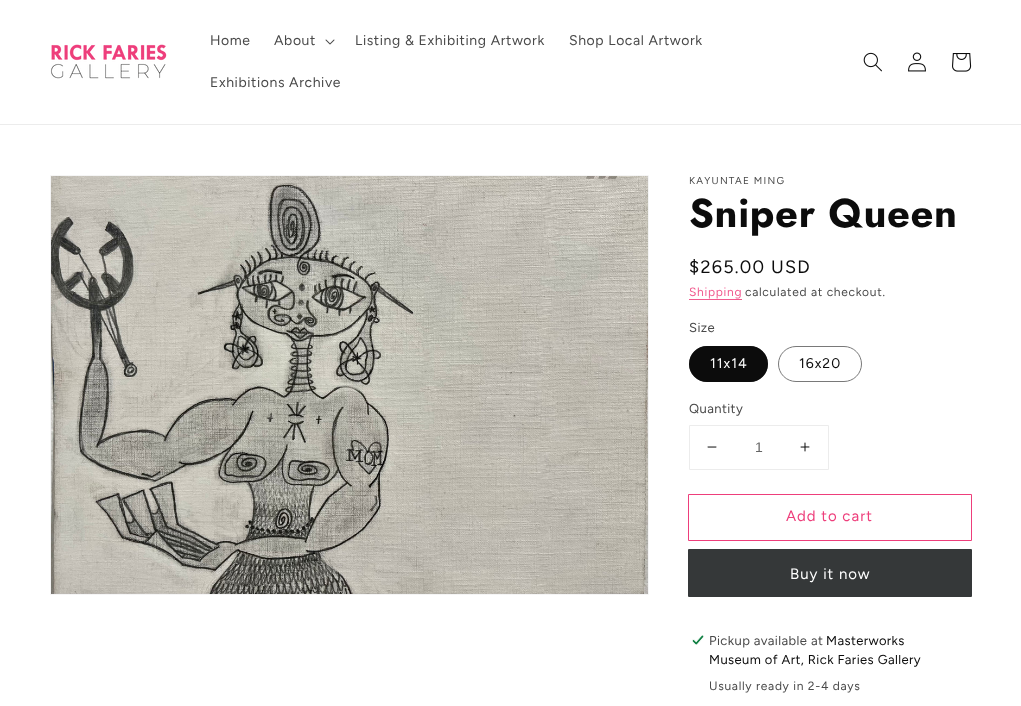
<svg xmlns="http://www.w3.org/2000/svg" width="1021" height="706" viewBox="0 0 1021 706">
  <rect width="100%" height="100%" fill="#fff"/>
  <path d="M0 124h1021v1H0z" fill="#ececec"/>
  <image x="50" y="44" width="117" height="35" href="img/1.png"/>
  <image x="325" y="39" width="10" height="6" href="img/2.png"/>
  <image x="863" y="52" width="19" height="20" href="img/3.png"/>
  <image x="908" y="52" width="18" height="20" href="img/4.png"/>
  <image x="952" y="53" width="20" height="19" href="img/5.png"/>
  <path d="M50.5 175.5h598v419H50.5z" fill="none" stroke="#f5f5f5"/>
  <image x="51" y="176" width="597" height="418" href="img/6.png"/>
  <path d="M689 299h53v1H689z" fill="#f15b8f"/>
  <rect x="689" y="346" width="79" height="36" rx="18" fill="#0c0c0c"/>
  <rect x="689.5" y="346.5" width="78" height="35" rx="17.5" fill="none" stroke="#0c0c0c8c"/>
  <rect x="778.5" y="346.5" width="83" height="35" rx="17.5" fill="none" stroke="#797979"/>
  <path d="M689.5 425.5h139v44H689.5z" fill="none" stroke="#ececec"/>
  <image x="707" y="446" width="10" height="2" href="img/7.png"/>
  <image x="800" y="442" width="10" height="10" href="img/8.png"/>
  <path d="M688.5 494.5h283v46H688.5z" fill="none" stroke="#ee3e7b"/>
  <path d="M688.5 549.5h283v47H688.5z" fill="none" stroke="#353839"/>
  <path d="M689 550h282v46H689z" fill="#353839"/>
  <image x="692" y="635" width="12" height="10" href="img/9.png"/>
  <g font-family="Figtree" font-size="14" letter-spacing="0.6" fill="#494949">
    <text x="210" y="45">Home</text>
    <text x="274" y="45">About</text>
    <text x="355" y="45">Listing &amp; Exhibiting Artwork</text>
    <text x="569" y="45">Shop Local Artwork</text>
    <text x="210" y="87">Exhibitions Archive</text>
  </g>
  <text x="689" y="184" font-family="Figtree" font-size="10" letter-spacing="1.25" fill="#494949">KAYUNTAE MING</text>
  <text x="689" y="227" font-family="Jost" font-size="40" font-weight="bold" letter-spacing="0.6" fill="#0c0c0c">Sniper Queen</text>
  <text x="689" y="273" font-family="Figtree" font-size="18" letter-spacing="1.25" fill="#0c0c0c">$265.00 USD</text>
  <text x="689" y="296" font-family="Figtree" font-size="12" letter-spacing="0.7" fill="#f15b8f">Shipping</text>
  <text x="745" y="296" font-family="Figtree" font-size="12" letter-spacing="0.7" fill="#494949">calculated at checkout.</text>
  <text x="689" y="332" font-family="Figtree" font-size="13" letter-spacing="0.4" fill="#494949">Size</text>
  <text x="710" y="368" font-family="Figtree" font-size="14" letter-spacing="1" fill="#fff">11x14</text>
  <text x="799" y="368" font-family="Figtree" font-size="14" letter-spacing="1" fill="#0c0c0c">16x20</text>
  <text x="689" y="413" font-family="Figtree" font-size="13" letter-spacing="0.4" fill="#494949">Quantity</text>
  <text x="755" y="452" font-family="Liberation Sans" font-size="14" fill="#646464">1</text>
  <text x="786" y="521" font-family="Figtree" font-size="15" letter-spacing="1" fill="#ee3e7b">Add to cart</text>
  <text x="790" y="579" font-family="Figtree" font-size="15" letter-spacing="1" fill="#fff">Buy it now</text>
  <text x="709" y="645" font-family="Figtree" font-size="13" letter-spacing="0.4" fill="#494949">Pickup available at</text>
  <g font-family="Figtree" font-size="13" letter-spacing="0.4" fill="#0c0c0c">
    <text x="826" y="645">Masterworks</text>
    <text x="709" y="664">Museum of Art, Rick Faries Gallery</text>
  </g>
  <text x="709" y="690" font-family="Figtree" font-size="12" letter-spacing="0.7" fill="#494949">Usually ready in 2-4 days</text>
</svg>
